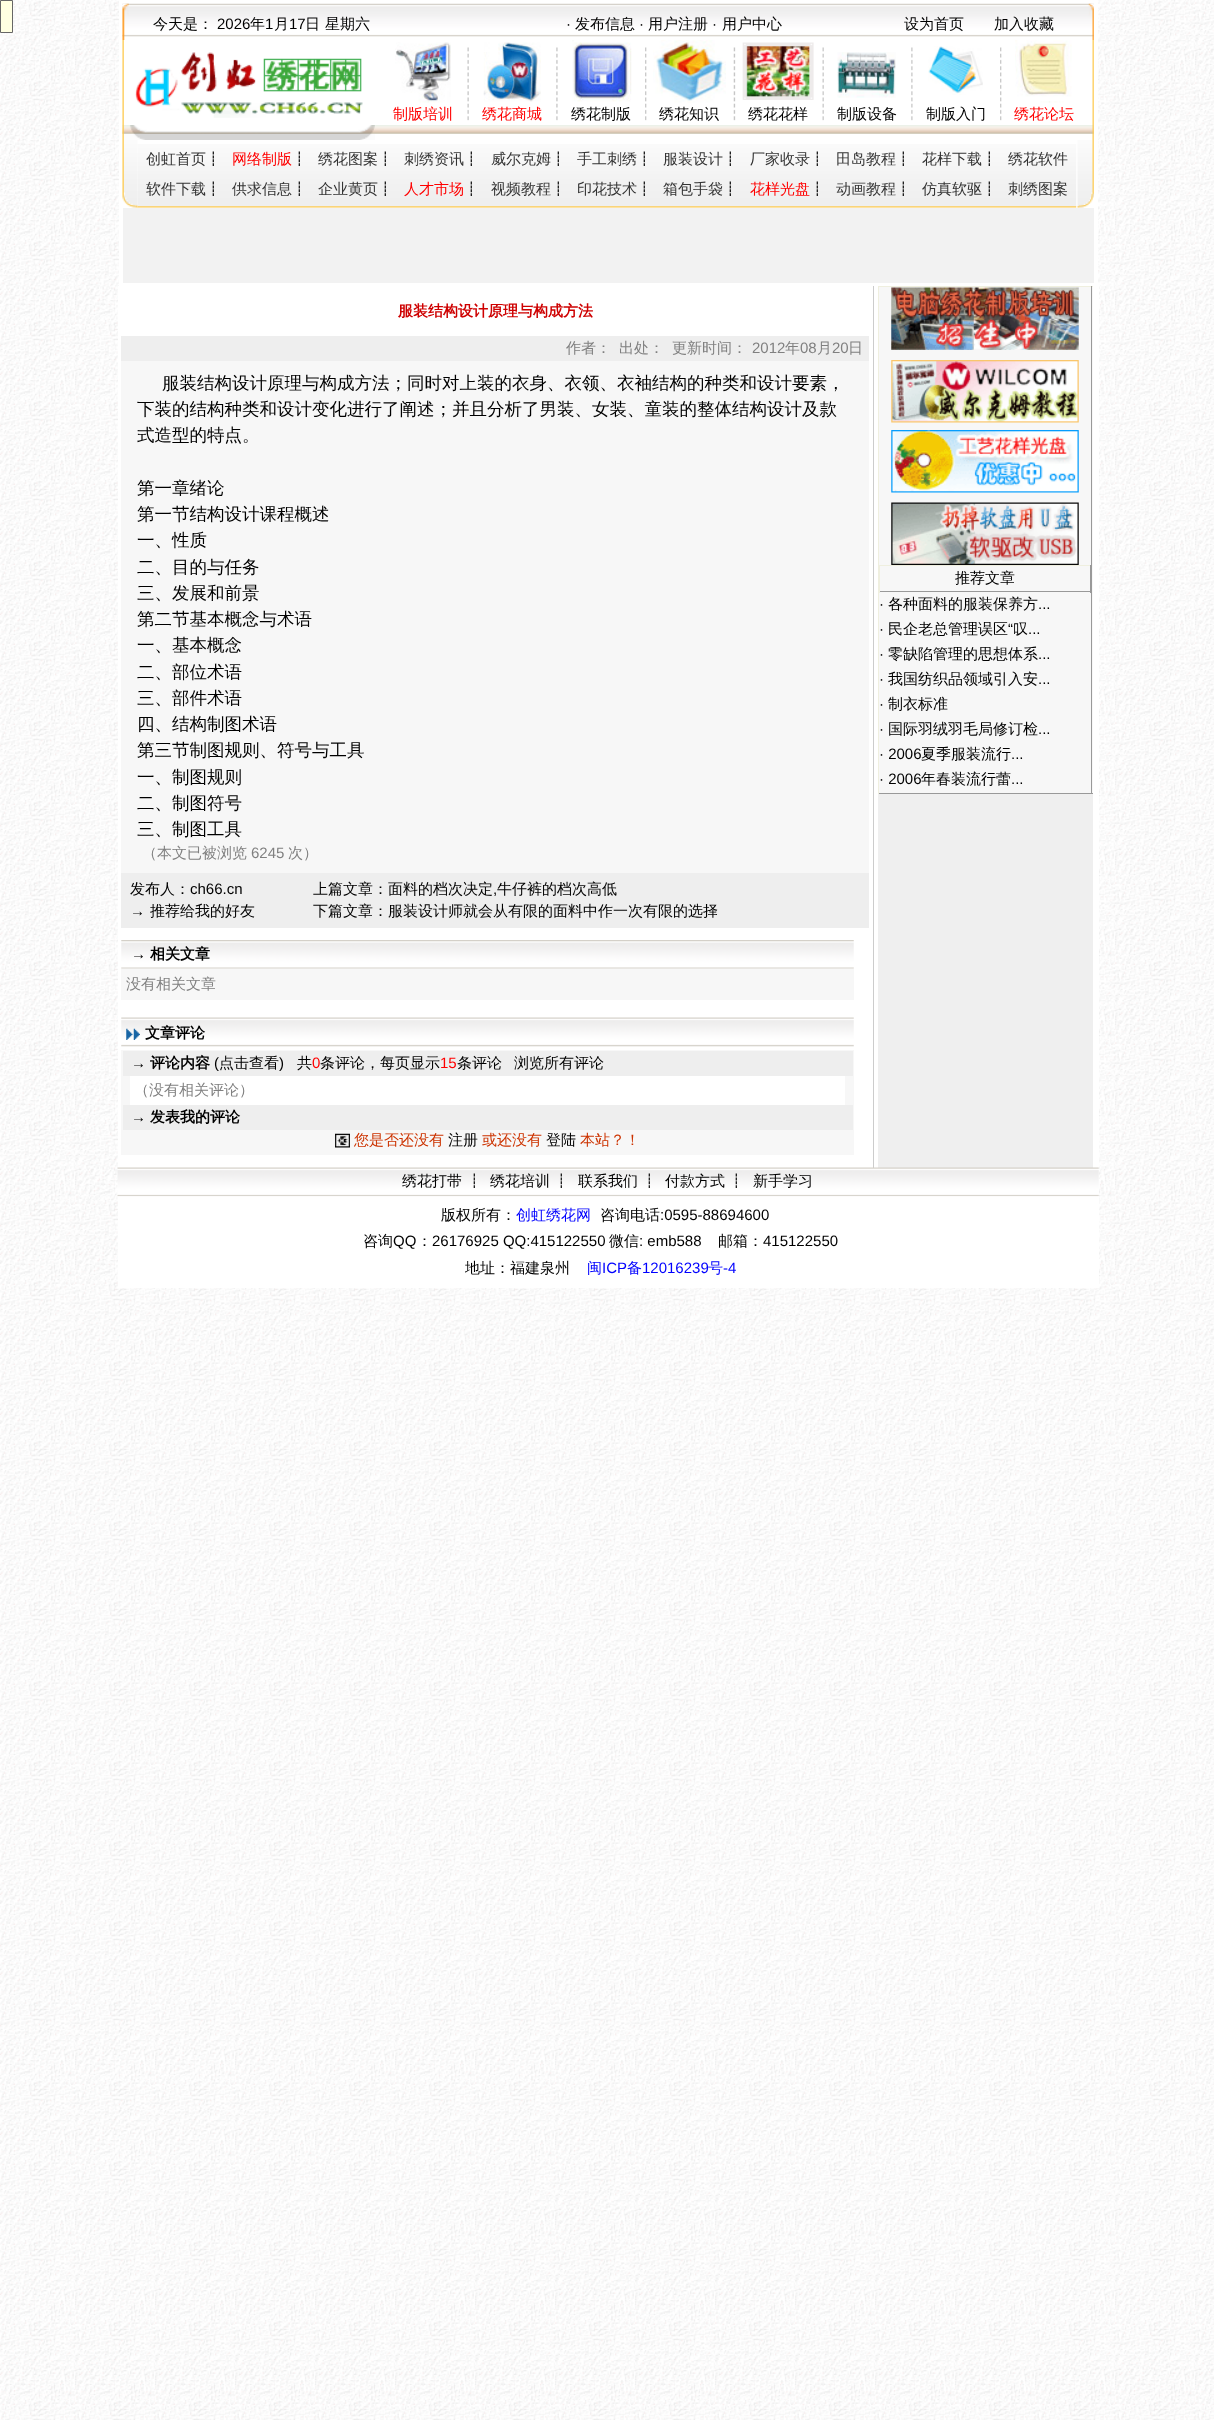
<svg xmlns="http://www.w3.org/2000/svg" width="1214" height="2420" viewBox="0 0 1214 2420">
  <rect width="100%" height="100%" fill="#fff"/>
  <image x="0" y="0" width="1214" height="2420" href="img/1.png"/>
  <path d="M0.5 0.5h12v32H0.5z" fill="#ffffe1" stroke="#666"/>
  <path d="M119 0h979v286H119z" fill="#fff"/>
  <image x="122" y="3" width="972" height="34" href="img/2.png"/>
  <image x="122" y="3" width="7" height="37" href="img/3.png"/>
  <image x="1088" y="3" width="6" height="37" href="img/4.png"/>
  <image x="122" y="40" width="2" height="85" href="img/5.png"/>
  <image x="135" y="52" width="228" height="66" href="img/6.png"/>
  <image x="395" y="42" width="56" height="61" href="img/7.png"/>
  <image x="467" y="47" width="2" height="74" href="img/8.png"/>
  <image x="483" y="42" width="58" height="60" href="img/9.png"/>
  <image x="556" y="47" width="2" height="74" href="img/10.png"/>
  <image x="572" y="40" width="60" height="62" href="img/11.png"/>
  <image x="645" y="47" width="2" height="74" href="img/12.png"/>
  <image x="653" y="40" width="73" height="63" href="img/13.png"/>
  <image x="733" y="47" width="3" height="74" href="img/14.png"/>
  <image x="742" y="42" width="72" height="58" href="img/15.png"/>
  <image x="822" y="47" width="2" height="74" href="img/16.png"/>
  <image x="837" y="52" width="59" height="46" href="img/17.png"/>
  <image x="911" y="47" width="2" height="74" href="img/18.png"/>
  <image x="928" y="46" width="55" height="49" href="img/19.png"/>
  <image x="1000" y="47" width="2" height="74" href="img/12.png"/>
  <image x="1015" y="40" width="57" height="63" href="img/20.png"/>
  <image x="1092" y="40" width="2" height="85" href="img/21.png"/>
  <image x="122" y="125" width="972" height="9" href="img/22.png"/>
  <image x="122" y="125" width="253" height="15" href="img/23.png"/>
  <image x="1092" y="125" width="2" height="15" href="img/24.png"/>
  <image x="137" y="144" width="940" height="64" href="img/26.png"/>
  <image x="122" y="140" width="16" height="68" href="img/25.png"/>
  <image x="1077" y="140" width="17" height="68" href="img/27.png"/>
  <path d="M123 208h971v75H123z" fill="#f2f2f2"/>
  <path d="M118 286h981v1002H118z" fill="#fff"/>
  <path d="M121 336h748v25H121z" fill="#eee"/>
  <path d="M121 361h748v512H121z" fill="#f7f7f7"/>
  <path d="M121 873h748v55H121z" fill="#eee"/>
  <image x="121" y="940" width="733" height="29" href="img/28.png"/>
  <path d="M121 969h733v31H121z" fill="#f7f7f7"/>
  <image x="121" y="1017" width="733" height="30" href="img/29.png"/>
  <image x="126" y="1028" width="14" height="12" href="img/30.png"/>
  <path d="M121 1050h733v105H121z" fill="#f7f7f7"/>
  <path d="M123 1051h730v25H123z" fill="#eee"/>
  <path d="M130 1076h715v29H130z" fill="#fff"/>
  <path d="M123 1105h730v25H123z" fill="#eee"/>
  <image x="335" y="1133" width="15" height="15" href="img/31.png"/>
  <path d="M873 286h1v882H873z" fill="#ccc"/>
  <path d="M878 794h215v374H878z" fill="#efefef"/>
  <path d="M879 287h214v506H879z" fill="#f7f7f7"/>
  <path d="M878 286h215v1H878z" fill="#efefdf"/>
  <path d="M1091 286h1v508H1091z" fill="#999"/>
  <path d="M878 793h215v1H878z" fill="#999"/>
  <path d="M878 286h1v508H878z" fill="#efefdf"/>
  <image x="891" y="287" width="188" height="63" href="img/32.png"/>
  <image x="891" y="360" width="188" height="63" href="img/33.png"/>
  <image x="891" y="430" width="188" height="63" href="img/34.png"/>
  <image x="891" y="502" width="188" height="63" href="img/35.png"/>
  <path d="M879 565h212v1H879z" fill="#efefdf"/>
  <path d="M1090 565h1v28H1090z" fill="#999"/>
  <path d="M879 591h212v1H879z" fill="#999"/>
  <path d="M879 565h1v28H879z" fill="#efefdf"/>
  <image x="117" y="1167" width="982" height="30" href="img/36.png"/>
  <text x="153" y="29" font-family="WenQuanYi Zen Hei" font-size="15" font-weight="500" fill="#000">今天是：</text>
  <text x="217" y="29" font-family="Liberation Sans" font-size="15" fill="#000">2026</text>
  <text x="250" y="29" font-family="WenQuanYi Zen Hei" font-size="15" font-weight="500" fill="#000">年</text>
  <text x="265" y="29" font-family="Liberation Sans" font-size="15" fill="#000">1</text>
  <text x="274" y="29" font-family="WenQuanYi Zen Hei" font-size="15" font-weight="500" fill="#000">月</text>
  <text x="289" y="29" font-family="Liberation Sans" font-size="15" fill="#000">17</text>
  <g font-family="WenQuanYi Zen Hei" font-size="15" font-weight="500" fill="#000">
    <text x="305" y="29">日</text>
    <text x="325" y="29">星期六</text>
  </g>
  <text x="566" y="29" font-family="Liberation Sans" font-size="15" fill="#000">·</text>
  <text x="575" y="29" font-family="WenQuanYi Zen Hei" font-size="15" font-weight="500" fill="#000">发布信息</text>
  <text x="639" y="29" font-family="Liberation Sans" font-size="15" fill="#000">·</text>
  <text x="648" y="29" font-family="WenQuanYi Zen Hei" font-size="15" font-weight="500" fill="#000">用户注册</text>
  <text x="712" y="29" font-family="Liberation Sans" font-size="15" fill="#000">·</text>
  <g font-family="WenQuanYi Zen Hei" font-size="15" font-weight="500" fill="#000">
    <text x="722" y="29">用户中心</text>
    <text x="904" y="29">设为首页</text>
    <text x="994" y="29">加入收藏</text>
  </g>
  <g font-family="WenQuanYi Zen Hei" font-size="15" font-weight="500" fill="#f00">
    <text x="393" y="119">制版培训</text>
    <text x="482" y="119">绣花商城</text>
  </g>
  <g font-family="WenQuanYi Zen Hei" font-size="15" font-weight="500" fill="#000">
    <text x="571" y="119">绣花制版</text>
    <text x="659" y="119">绣花知识</text>
    <text x="748" y="119">绣花花样</text>
    <text x="837" y="119">制版设备</text>
    <text x="926" y="119">制版入门</text>
  </g>
  <text x="1014" y="119" font-family="WenQuanYi Zen Hei" font-size="15" font-weight="500" fill="#f00">绣花论坛</text>
  <text x="146" y="164" font-family="WenQuanYi Zen Hei" font-size="15" font-weight="500" fill="#333">创虹首页</text>
  <text x="206" y="164" font-family="WenQuanYi Zen Hei" font-size="15" font-weight="500" fill="#000">┋</text>
  <text x="232" y="164" font-family="WenQuanYi Zen Hei" font-size="15" font-weight="500" fill="#f00">网络制版</text>
  <text x="292" y="164" font-family="WenQuanYi Zen Hei" font-size="15" font-weight="500" fill="#000">┋</text>
  <text x="318" y="164" font-family="WenQuanYi Zen Hei" font-size="15" font-weight="500" fill="#333">绣花图案</text>
  <text x="378" y="164" font-family="WenQuanYi Zen Hei" font-size="15" font-weight="500" fill="#000">┋</text>
  <text x="404" y="164" font-family="WenQuanYi Zen Hei" font-size="15" font-weight="500" fill="#333">刺绣资讯</text>
  <text x="464" y="164" font-family="WenQuanYi Zen Hei" font-size="15" font-weight="500" fill="#000">┋</text>
  <text x="491" y="164" font-family="WenQuanYi Zen Hei" font-size="15" font-weight="500" fill="#333">威尔克姆</text>
  <text x="551" y="164" font-family="WenQuanYi Zen Hei" font-size="15" font-weight="500" fill="#000">┋</text>
  <text x="577" y="164" font-family="WenQuanYi Zen Hei" font-size="15" font-weight="500" fill="#333">手工刺绣</text>
  <text x="637" y="164" font-family="WenQuanYi Zen Hei" font-size="15" font-weight="500" fill="#000">┋</text>
  <text x="663" y="164" font-family="WenQuanYi Zen Hei" font-size="15" font-weight="500" fill="#333">服装设计</text>
  <text x="723" y="164" font-family="WenQuanYi Zen Hei" font-size="15" font-weight="500" fill="#000">┋</text>
  <text x="750" y="164" font-family="WenQuanYi Zen Hei" font-size="15" font-weight="500" fill="#333">厂家收录</text>
  <text x="810" y="164" font-family="WenQuanYi Zen Hei" font-size="15" font-weight="500" fill="#000">┋</text>
  <text x="836" y="164" font-family="WenQuanYi Zen Hei" font-size="15" font-weight="500" fill="#333">田岛教程</text>
  <text x="896" y="164" font-family="WenQuanYi Zen Hei" font-size="15" font-weight="500" fill="#000">┋</text>
  <text x="922" y="164" font-family="WenQuanYi Zen Hei" font-size="15" font-weight="500" fill="#333">花样下载</text>
  <text x="982" y="164" font-family="WenQuanYi Zen Hei" font-size="15" font-weight="500" fill="#000">┋</text>
  <g font-family="WenQuanYi Zen Hei" font-size="15" font-weight="500" fill="#333">
    <text x="1008" y="164">绣花软件</text>
    <text x="146" y="194">软件下载</text>
  </g>
  <text x="206" y="194" font-family="WenQuanYi Zen Hei" font-size="15" font-weight="500" fill="#000">┋</text>
  <text x="232" y="194" font-family="WenQuanYi Zen Hei" font-size="15" font-weight="500" fill="#333">供求信息</text>
  <text x="292" y="194" font-family="WenQuanYi Zen Hei" font-size="15" font-weight="500" fill="#000">┋</text>
  <text x="318" y="194" font-family="WenQuanYi Zen Hei" font-size="15" font-weight="500" fill="#333">企业黄页</text>
  <text x="378" y="194" font-family="WenQuanYi Zen Hei" font-size="15" font-weight="500" fill="#000">┋</text>
  <text x="404" y="194" font-family="WenQuanYi Zen Hei" font-size="15" font-weight="500" fill="#f00">人才市场</text>
  <text x="464" y="194" font-family="WenQuanYi Zen Hei" font-size="15" font-weight="500" fill="#000">┋</text>
  <text x="491" y="194" font-family="WenQuanYi Zen Hei" font-size="15" font-weight="500" fill="#333">视频教程</text>
  <text x="551" y="194" font-family="WenQuanYi Zen Hei" font-size="15" font-weight="500" fill="#000">┋</text>
  <text x="577" y="194" font-family="WenQuanYi Zen Hei" font-size="15" font-weight="500" fill="#333">印花技术</text>
  <text x="637" y="194" font-family="WenQuanYi Zen Hei" font-size="15" font-weight="500" fill="#000">┋</text>
  <text x="663" y="194" font-family="WenQuanYi Zen Hei" font-size="15" font-weight="500" fill="#333">箱包手袋</text>
  <text x="723" y="194" font-family="WenQuanYi Zen Hei" font-size="15" font-weight="500" fill="#000">┋</text>
  <text x="750" y="194" font-family="WenQuanYi Zen Hei" font-size="15" font-weight="500" fill="#f00">花样光盘</text>
  <text x="810" y="194" font-family="WenQuanYi Zen Hei" font-size="15" font-weight="500" fill="#000">┋</text>
  <text x="836" y="194" font-family="WenQuanYi Zen Hei" font-size="15" font-weight="500" fill="#333">动画教程</text>
  <text x="896" y="194" font-family="WenQuanYi Zen Hei" font-size="15" font-weight="500" fill="#000">┋</text>
  <text x="922" y="194" font-family="WenQuanYi Zen Hei" font-size="15" font-weight="500" fill="#333">仿真软驱</text>
  <text x="982" y="194" font-family="WenQuanYi Zen Hei" font-size="15" font-weight="500" fill="#000">┋</text>
  <text x="1008" y="194" font-family="WenQuanYi Zen Hei" font-size="15" font-weight="500" fill="#333">刺绣图案</text>
  <text x="398" y="316" font-family="WenQuanYi Zen Hei" font-size="15" font-weight="bold" fill="#ce0000">服装结构设计原理与构成方法</text>
  <g font-family="WenQuanYi Zen Hei" font-size="15" font-weight="500" fill="#808080">
    <text x="566" y="353">作者：</text>
    <text x="619" y="353">出处：</text>
    <text x="672" y="353">更新时间：</text>
  </g>
  <text x="752" y="353" font-family="Liberation Sans" font-size="15" fill="#808080">2012</text>
  <text x="785" y="353" font-family="WenQuanYi Zen Hei" font-size="15" font-weight="500" fill="#808080">年</text>
  <text x="800" y="353" font-family="Liberation Sans" font-size="15" fill="#808080">08</text>
  <text x="817" y="353" font-family="WenQuanYi Zen Hei" font-size="15" font-weight="500" fill="#808080">月</text>
  <text x="832" y="353" font-family="Liberation Sans" font-size="15" fill="#808080">20</text>
  <text x="848" y="353" font-family="WenQuanYi Zen Hei" font-size="15" font-weight="500" fill="#808080">日</text>
  <g font-family="WenQuanYi Zen Hei" font-size="17.5" font-weight="500" fill="#000">
    <text x="162" y="389">服装结构设计原理与构成方法；同时对上装的衣身、衣领、衣袖结构的种类和设计要素，</text>
    <text x="137" y="415">下装的结构种类和设计变化进行了阐述；并且分析了男装、女装、童装的整体结构设计及款</text>
    <text x="137" y="441">式造型的特点。</text>
    <text x="137" y="494">第一章绪论</text>
    <text x="137" y="520">第一节结构设计课程概述</text>
    <text x="137" y="546">一、性质</text>
    <text x="137" y="573">二、目的与任务</text>
    <text x="137" y="599">三、发展和前景</text>
    <text x="137" y="625">第二节基本概念与术语</text>
    <text x="137" y="651">一、基本概念</text>
    <text x="137" y="678">二、部位术语</text>
    <text x="137" y="704">三、部件术语</text>
    <text x="137" y="730">四、结构制图术语</text>
    <text x="137" y="756">第三节制图规则、符号与工具</text>
    <text x="137" y="783">一、制图规则</text>
    <text x="137" y="809">二、制图符号</text>
    <text x="137" y="835">三、制图工具</text>
  </g>
  <text x="142" y="858" font-family="WenQuanYi Zen Hei" font-size="15" font-weight="500" fill="#808080">（本文已被浏览</text>
  <text x="251" y="858" font-family="Liberation Sans" font-size="15" fill="#808080">6245</text>
  <text x="288" y="858" font-family="WenQuanYi Zen Hei" font-size="15" font-weight="500" fill="#808080">次）</text>
  <text x="130" y="894" font-family="WenQuanYi Zen Hei" font-size="15" font-weight="500" fill="#000">发布人：</text>
  <g font-family="Liberation Sans" font-size="15" fill="#000">
    <text x="190" y="894">ch66.cn</text>
    <text x="130" y="916">→</text>
  </g>
  <g font-family="WenQuanYi Zen Hei" font-size="15" font-weight="500" fill="#000">
    <text x="150" y="916">推荐给我的好友</text>
    <text x="313" y="894">上篇文章：面料的档次决定</text>
  </g>
  <text x="493" y="894" font-family="Liberation Sans" font-size="15" fill="#000">,</text>
  <g font-family="WenQuanYi Zen Hei" font-size="15" font-weight="500" fill="#000">
    <text x="497" y="894">牛仔裤的档次高低</text>
    <text x="313" y="916">下篇文章：服装设计师就会从有限的面料中作一次有限的选择</text>
  </g>
  <text x="131" y="959" font-family="Liberation Sans" font-size="15" font-weight="bold" fill="#000">→</text>
  <text x="150" y="959" font-family="WenQuanYi Zen Hei" font-size="15" font-weight="bold" fill="#000">相关文章</text>
  <text x="126" y="989" font-family="WenQuanYi Zen Hei" font-size="15" font-weight="500" fill="#808080">没有相关文章</text>
  <text x="145" y="1038" font-family="WenQuanYi Zen Hei" font-size="15" font-weight="bold" fill="#000">文章评论</text>
  <text x="131" y="1068" font-family="Liberation Sans" font-size="15" fill="#000">→</text>
  <text x="150" y="1068" font-family="WenQuanYi Zen Hei" font-size="15" font-weight="bold" fill="#000">评论内容</text>
  <text x="214" y="1068" font-family="Liberation Sans" font-size="15" fill="#000">(</text>
  <text x="219" y="1068" font-family="WenQuanYi Zen Hei" font-size="15" font-weight="500" fill="#000">点击查看</text>
  <text x="279" y="1068" font-family="Liberation Sans" font-size="15" fill="#000">)</text>
  <text x="297" y="1068" font-family="WenQuanYi Zen Hei" font-size="15" font-weight="500" fill="#000">共</text>
  <text x="312" y="1068" font-family="Liberation Sans" font-size="15" fill="#f00">0</text>
  <text x="320" y="1068" font-family="WenQuanYi Zen Hei" font-size="15" font-weight="500" fill="#000">条评论，每页显示</text>
  <text x="440" y="1068" font-family="Liberation Sans" font-size="15" fill="#f00">15</text>
  <g font-family="WenQuanYi Zen Hei" font-size="15" font-weight="500" fill="#000">
    <text x="457" y="1068">条评论</text>
    <text x="514" y="1068">浏览所有评论</text>
  </g>
  <text x="134" y="1095" font-family="WenQuanYi Zen Hei" font-size="15" font-weight="500" fill="#808080">（没有相关评论）</text>
  <text x="131" y="1122" font-family="Liberation Sans" font-size="15" font-weight="bold" fill="#000">→</text>
  <text x="150" y="1122" font-family="WenQuanYi Zen Hei" font-size="15" font-weight="bold" fill="#000">发表我的评论</text>
  <text x="354" y="1145" font-family="WenQuanYi Zen Hei" font-size="15" font-weight="500" fill="#c30">您是否还没有</text>
  <text x="448" y="1145" font-family="WenQuanYi Zen Hei" font-size="15" font-weight="500" fill="#000">注册</text>
  <text x="482" y="1145" font-family="WenQuanYi Zen Hei" font-size="15" font-weight="500" fill="#c30">或还没有</text>
  <text x="546" y="1145" font-family="WenQuanYi Zen Hei" font-size="15" font-weight="500" fill="#000">登陆</text>
  <text x="580" y="1145" font-family="WenQuanYi Zen Hei" font-size="15" font-weight="500" fill="#c30">本站？！</text>
  <text x="955" y="583" font-family="WenQuanYi Zen Hei" font-size="15" font-weight="500" fill="#000">推荐文章</text>
  <text x="879" y="609" font-family="Liberation Sans" font-size="15" fill="#000">·</text>
  <text x="888" y="609" font-family="WenQuanYi Zen Hei" font-size="15" font-weight="500" fill="#000">各种面料的服装保养方</text>
  <text x="1038" y="609" font-family="Liberation Sans" font-size="15" fill="#000">...</text>
  <text x="888" y="634" font-family="WenQuanYi Zen Hei" font-size="15" font-weight="500" fill="#000">民企老总管理误区</text>
  <text x="1008" y="634" font-family="Liberation Sans" font-size="15" fill="#000">“</text>
  <text x="1013" y="634" font-family="WenQuanYi Zen Hei" font-size="15" font-weight="500" fill="#000">叹</text>
  <g font-family="Liberation Sans" font-size="15" fill="#000">
    <text x="879" y="634">·</text>
    <text x="1028" y="634">...</text>
    <text x="879" y="659">·</text>
  </g>
  <text x="888" y="659" font-family="WenQuanYi Zen Hei" font-size="15" font-weight="500" fill="#000">零缺陷管理的思想体系</text>
  <g font-family="Liberation Sans" font-size="15" fill="#000">
    <text x="1038" y="659">...</text>
    <text x="879" y="684">·</text>
  </g>
  <text x="888" y="684" font-family="WenQuanYi Zen Hei" font-size="15" font-weight="500" fill="#000">我国纺织品领域引入安</text>
  <g font-family="Liberation Sans" font-size="15" fill="#000">
    <text x="1038" y="684">...</text>
    <text x="879" y="709">·</text>
  </g>
  <text x="888" y="709" font-family="WenQuanYi Zen Hei" font-size="15" font-weight="500" fill="#000">制衣标准</text>
  <text x="879" y="734" font-family="Liberation Sans" font-size="15" fill="#000">·</text>
  <text x="888" y="734" font-family="WenQuanYi Zen Hei" font-size="15" font-weight="500" fill="#000">国际羽绒羽毛局修订检</text>
  <g font-family="Liberation Sans" font-size="15" fill="#000">
    <text x="1038" y="734">...</text>
    <text x="879" y="759">· 2006</text>
  </g>
  <text x="921" y="759" font-family="WenQuanYi Zen Hei" font-size="15" font-weight="500" fill="#000">夏季服装流行</text>
  <g font-family="Liberation Sans" font-size="15" fill="#000">
    <text x="1011" y="759">...</text>
    <text x="879" y="784">· 2006</text>
  </g>
  <text x="921" y="784" font-family="WenQuanYi Zen Hei" font-size="15" font-weight="500" fill="#000">年春装流行蕾</text>
  <text x="1011" y="784" font-family="Liberation Sans" font-size="15" fill="#000">...</text>
  <g font-family="WenQuanYi Zen Hei" font-size="15" font-weight="500" fill="#000">
    <text x="402" y="1186">绣花打带</text>
    <text x="467" y="1186">┋</text>
    <text x="490" y="1186">绣花培训</text>
    <text x="554" y="1186">┋</text>
    <text x="578" y="1186">联系我们</text>
    <text x="642" y="1186">┋</text>
    <text x="665" y="1186">付款方式</text>
    <text x="729" y="1186">┋</text>
    <text x="753" y="1186">新手学习</text>
    <text x="441" y="1220">版权所有：</text>
  </g>
  <text x="516" y="1220" font-family="WenQuanYi Zen Hei" font-size="15" font-weight="500" fill="#00f">创虹绣花网</text>
  <text x="600" y="1220" font-family="WenQuanYi Zen Hei" font-size="15" font-weight="500" fill="#000">咨询电话</text>
  <text x="660" y="1220" font-family="Liberation Sans" font-size="15" fill="#000">:0595-88694600</text>
  <text x="363" y="1246" font-family="WenQuanYi Zen Hei" font-size="15" font-weight="500" fill="#000">咨询</text>
  <text x="393" y="1246" font-family="Liberation Sans" font-size="15" fill="#000">QQ</text>
  <text x="417" y="1246" font-family="WenQuanYi Zen Hei" font-size="15" font-weight="500" fill="#000">：</text>
  <text x="432" y="1246" font-family="Liberation Sans" font-size="15" fill="#000">26176925 QQ:415122550</text>
  <text x="609" y="1246" font-family="WenQuanYi Zen Hei" font-size="15" font-weight="500" fill="#000">微信</text>
  <text x="639" y="1246" font-family="Liberation Sans" font-size="15" fill="#000">: emb588</text>
  <text x="718" y="1246" font-family="WenQuanYi Zen Hei" font-size="15" font-weight="500" fill="#000">邮箱：</text>
  <text x="763" y="1246" font-family="Liberation Sans" font-size="15" fill="#000">415122550</text>
  <text x="465" y="1273" font-family="WenQuanYi Zen Hei" font-size="15" font-weight="500" fill="#000">地址：福建泉州</text>
  <text x="587" y="1273" font-family="WenQuanYi Zen Hei" font-size="15" font-weight="500" fill="#00f">闽</text>
  <text x="602" y="1273" font-family="Liberation Sans" font-size="15" fill="#00f">ICP</text>
  <text x="627" y="1273" font-family="WenQuanYi Zen Hei" font-size="15" font-weight="500" fill="#00f">备</text>
  <text x="642" y="1273" font-family="Liberation Sans" font-size="15" fill="#00f">12016239</text>
  <text x="708" y="1273" font-family="WenQuanYi Zen Hei" font-size="15" font-weight="500" fill="#00f">号</text>
  <text x="723" y="1273" font-family="Liberation Sans" font-size="15" fill="#00f">-4</text>
</svg>
